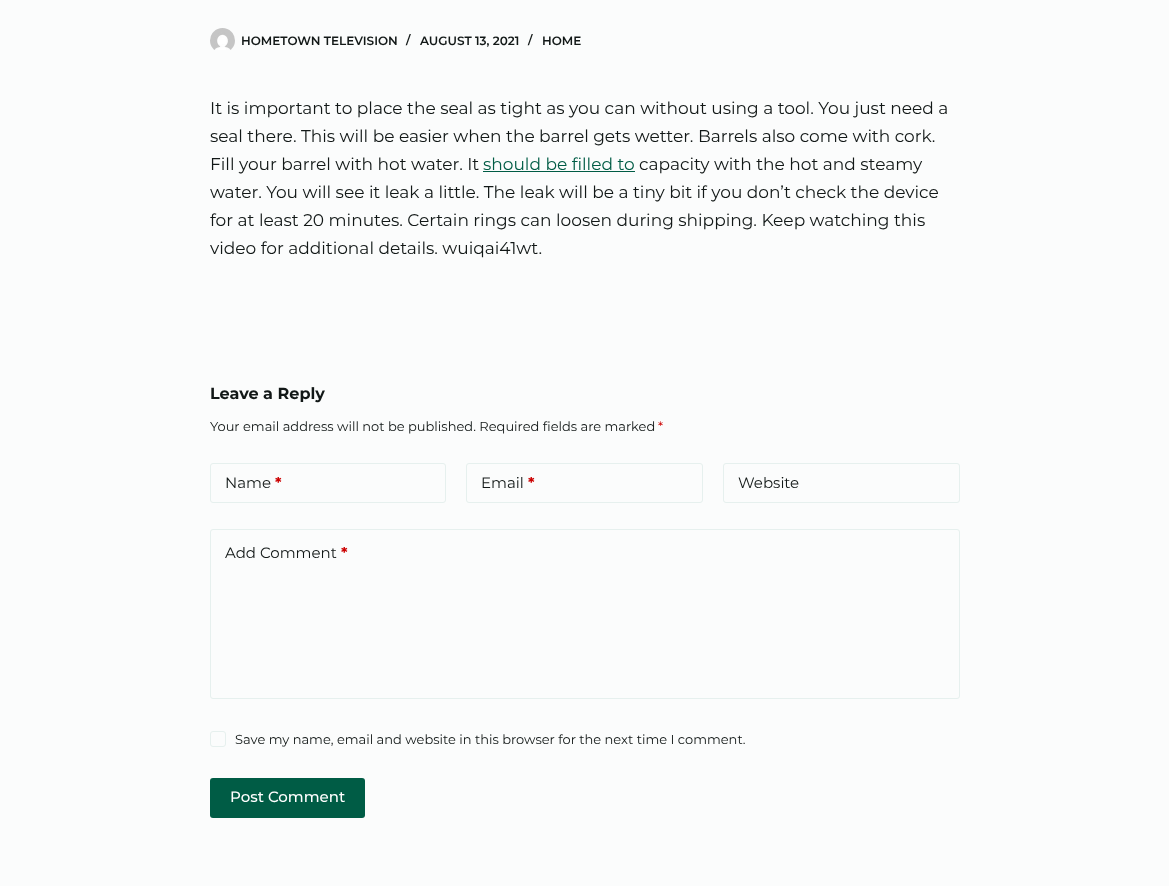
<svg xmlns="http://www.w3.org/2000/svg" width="1169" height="886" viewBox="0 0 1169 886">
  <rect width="100%" height="100%" fill="#fbfcfc"/>
  <image x="210" y="28" width="25" height="22" href="img/1.png"/>
  <path d="M483 171h152v1H483z" fill="#005c45"/>
  <rect x="210.5" y="463.5" width="235" height="39" rx="2.5" fill="none" stroke="#e6f0ee"/>
  <rect x="466.5" y="463.5" width="236" height="39" rx="2.5" fill="none" stroke="#e6f0ee"/>
  <rect x="723.5" y="463.5" width="236" height="39" rx="2.5" fill="none" stroke="#e6f0ee"/>
  <rect x="210.5" y="529.5" width="749" height="169" rx="2.5" fill="none" stroke="#e6f0ee"/>
  <rect x="210.5" y="731.5" width="15" height="15" rx="2.5" fill="none" stroke="#e6f0ee"/>
  <rect x="210" y="778" width="155" height="40" rx="3" fill="#005c45"/>
  <g font-family="Montserrat" font-size="12" font-weight="600" fill="#121817">
    <text x="241" y="45">HOMETOWN TELEVISION</text>
    <text x="406" y="44">/</text>
    <text x="420" y="45">AUGUST 13, 2021</text>
    <text x="528" y="44">/</text>
    <text x="542" y="45">HOME</text>
  </g>
  <g font-family="Montserrat" font-size="17" fill="#121817">
    <text x="210" y="114">It is important to place the seal as tight as you can without using a tool. You just need a</text>
    <text x="210" y="142">seal there. This will be easier when the barrel gets wetter. Barrels also come with cork.</text>
    <text x="210" y="170">Fill your barrel with hot water. It</text>
  </g>
  <text x="483" y="170" font-family="Montserrat" font-size="17" fill="#005c45">should be filled to</text>
  <g font-family="Montserrat" font-size="17" fill="#121817">
    <text x="639" y="170">capacity with the hot and steamy</text>
    <text x="210" y="198">water. You will see it leak a little. The leak will be a tiny bit if you don’t check the device</text>
    <text x="210" y="226">for at least 20 minutes. Certain rings can loosen during shipping. Keep watching this</text>
    <text x="210" y="254">video for additional details. wuiqai41wt.</text>
  </g>
  <text x="210" y="399" font-family="Montserrat" font-size="16" font-weight="bold" fill="#121817">Leave a Reply</text>
  <text x="210" y="431" font-family="Montserrat" font-size="13" fill="#121817">Your email address will not be published. Required fields are marked</text>
  <text x="658" y="431" font-family="Montserrat" font-size="13" fill="#c00">*</text>
  <text x="225" y="488" font-family="Montserrat" font-size="15" fill="#121817">Name</text>
  <text x="275" y="488" font-family="Montserrat" font-size="15" font-weight="bold" fill="#c00">*</text>
  <text x="481" y="488" font-family="Montserrat" font-size="15" fill="#121817">Email</text>
  <text x="528" y="488" font-family="Montserrat" font-size="15" font-weight="bold" fill="#c00">*</text>
  <g font-family="Montserrat" font-size="15" fill="#121817">
    <text x="738" y="488">Website</text>
    <text x="225" y="558">Add Comment</text>
  </g>
  <text x="341" y="558" font-family="Montserrat" font-size="15" font-weight="bold" fill="#c00">*</text>
  <text x="235" y="744" font-family="Montserrat" font-size="13" fill="#121817">Save my name, email and website in this browser for the next time I comment.</text>
  <text x="230" y="802" font-family="Montserrat" font-size="15" font-weight="500" fill="#fff">Post Comment</text>
</svg>
